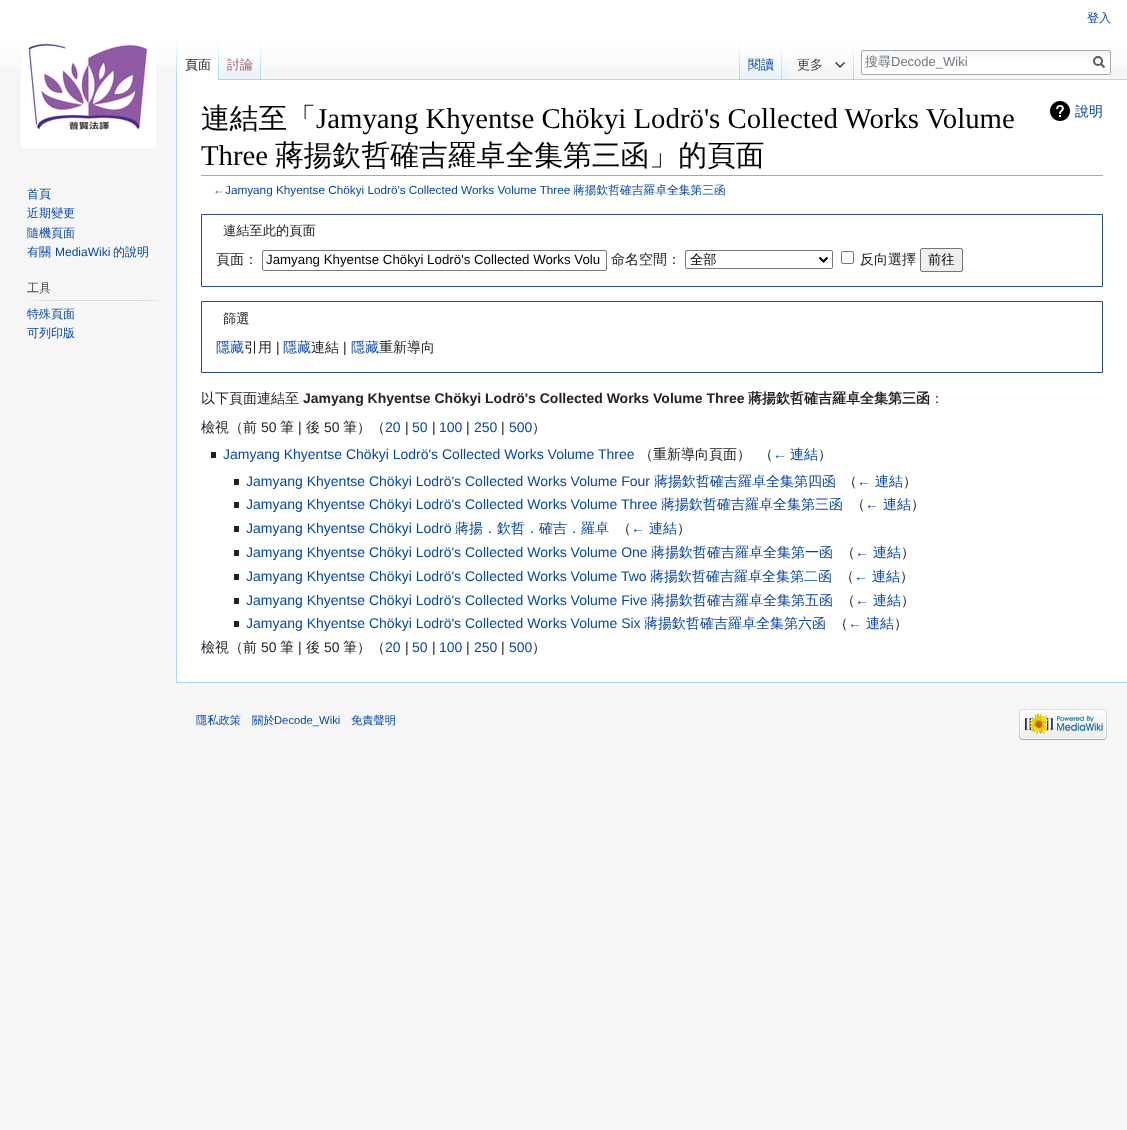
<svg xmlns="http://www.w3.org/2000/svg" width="1127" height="1130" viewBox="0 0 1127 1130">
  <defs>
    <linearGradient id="g1" gradientUnits="userSpaceOnUse" x1="564" y1="0" x2="564" y2="80"><stop offset="0.5" stop-color="#fff"/><stop offset="1" stop-color="#f6f6f6"/></linearGradient>
  </defs>
  <rect width="100%" height="100%" fill="#f6f6f6"/>
  <path d="M0 0h1127v69H0z" fill="url(#g1)"/>
  <image x="176" y="40" width="1" height="39" href="img/1.png"/>
  <path d="M177 60h41v20H177z" fill="#fff"/>
  <image x="218" y="40" width="1" height="40" href="img/2.png"/>
  <image x="219" y="40" width="41" height="39" href="img/3.png"/>
  <image x="260" y="40" width="1" height="39" href="img/1.png"/>
  <image x="739" y="40" width="1" height="39" href="img/1.png"/>
  <image x="740" y="62" width="41" height="17" href="img/4.png"/>
  <image x="781" y="40" width="1" height="39" href="img/1.png"/>
  <image x="782" y="40" width="7" height="39" href="img/5.png"/>
  <image x="853" y="40" width="1" height="39" href="img/1.png"/>
  <image x="835" y="62" width="10" height="6" href="img/6.png"/>
  <rect x="861" y="50" width="250" height="25" rx="2" fill="#fff"/>
  <image x="861" y="51" width="250" height="8" href="img/7.png"/>
  <rect x="861.5" y="50.5" width="249" height="24" rx="1.5" fill="none" stroke="#a2a9b1"/>
  <path d="M1104.5 67.5L1100.5 63.5" fill="none" stroke="#54595d" stroke-width="2"/>
  <circle cx="1098" cy="61" r="4" fill="none" stroke="#54595d" stroke-width="2"/>
  <image x="21" y="43" width="135" height="105" href="img/8.png"/>
  <image x="30" y="300" width="128" height="1" href="img/9.png"/>
  <path d="M177 80h950v602H177z" fill="#fff"/>
  <path d="M219 79h908v1H219z" fill="#a7d7f9"/>
  <path d="M176 682h951v1H176z" fill="#a7d7f9"/>
  <path d="M176 79h1v604H176z" fill="#a7d7f9"/>
  <path d="M201 175h902v1H201z" fill="#a2a9b1"/>
  <image x="1050" y="101" width="20" height="20" href="img/10.png"/>
  <path d="M201.5 214.5h901v72H201.5z" fill="none" stroke="#2a4b8d"/>
  <rect x="262.5" y="250.5" width="344" height="20" rx="1.5" fill="none" stroke="#767676"/>
  <rect x="685.5" y="250.5" width="147" height="18" rx="1.5" fill="none" stroke="#767676"/>
  <path d="M819.5 257.5L823.5 261.5L827.5 257.5" fill="none" stroke="#000" stroke-width="2"/>
  <rect x="841.5" y="251.5" width="12" height="12" rx="1.5" fill="none" stroke="#767676"/>
  <rect x="920.5" y="248.5" width="42" height="23" rx="1.5" fill="#efefef" stroke="#767676"/>
  <path d="M201.5 301.5h901v71H201.5z" fill="none" stroke="#2a4b8d"/>
  <path d="M211 452h5v6H211z" fill="#222"/>
  <path d="M234 479h5v6H234z" fill="#222"/>
  <path d="M234 502h5v6H234z" fill="#222"/>
  <path d="M234 526h5v6H234z" fill="#222"/>
  <path d="M234 550h5v6H234z" fill="#222"/>
  <path d="M234 574h5v6H234z" fill="#222"/>
  <path d="M234 598h5v6H234z" fill="#222"/>
  <path d="M234 621h5v6H234z" fill="#222"/>
  <image x="1019" y="709" width="88" height="31" href="img/11.png"/>
  <text x="1087" y="22" font-family="WenQuanYi Zen Hei" font-size="12" font-weight="500" fill="#0645ad">登入</text>
  <text x="185" y="69" font-family="WenQuanYi Zen Hei" font-size="13" font-weight="500" fill="#222">頁面</text>
  <text x="227" y="69" font-family="WenQuanYi Zen Hei" font-size="13" font-weight="500" fill="#a55858">討論</text>
  <text x="748" y="69" font-family="WenQuanYi Zen Hei" font-size="13" font-weight="500" fill="#0645ad">閱讀</text>
  <text x="797" y="69" font-family="WenQuanYi Zen Hei" font-size="13" font-weight="500" fill="#444">更多</text>
  <text x="865" y="66" font-family="WenQuanYi Zen Hei" font-size="13" font-weight="500" fill="#72777d">搜尋</text>
  <text x="891" y="66" font-family="Liberation Sans" font-size="13" fill="#72777d">Decode_Wiki</text>
  <g font-family="WenQuanYi Zen Hei" font-size="12" font-weight="500" fill="#0645ad">
    <text x="27" y="198">首頁</text>
    <text x="27" y="217">近期變更</text>
    <text x="27" y="237">隨機頁面</text>
    <text x="27" y="256">有關</text>
  </g>
  <text x="55" y="256" font-family="Liberation Sans" font-size="12" fill="#0645ad">MediaWiki</text>
  <text x="113" y="256" font-family="WenQuanYi Zen Hei" font-size="12" font-weight="500" fill="#0645ad">的說明</text>
  <text x="27" y="292" font-family="WenQuanYi Zen Hei" font-size="12" font-weight="500" fill="#444">工具</text>
  <g font-family="WenQuanYi Zen Hei" font-size="12" font-weight="500" fill="#0645ad">
    <text x="27" y="318">特殊頁面</text>
    <text x="27" y="337">可列印版</text>
  </g>
  <text x="201" y="128" font-family="WenQuanYi Zen Hei" font-size="28.8" font-weight="500" fill="#000">連結至「</text>
  <g font-family="Liberation Serif" font-size="28.8" fill="#000">
    <text x="316" y="128">Jamyang Khyentse Chökyi Lodrö's Collected Works Volume</text>
    <text x="201" y="165">Three</text>
  </g>
  <text x="275" y="165" font-family="WenQuanYi Zen Hei" font-size="28.8" font-weight="500" fill="#000">蔣揚欽哲確吉羅卓全集第三函」的頁面</text>
  <text x="1075" y="116" font-family="WenQuanYi Zen Hei" font-size="14" font-weight="500" fill="#0645ad">說明</text>
  <text x="213" y="194" font-family="Liberation Sans" font-size="11.75" fill="#54595d">←</text>
  <text x="225" y="194" font-family="Liberation Sans" font-size="11.75" fill="#0645ad">Jamyang Khyentse Chökyi Lodrö's Collected Works Volume Three</text>
  <text x="573" y="194" font-family="WenQuanYi Zen Hei" font-size="11.75" font-weight="500" fill="#0645ad">蔣揚欽哲確吉羅卓全集第三函</text>
  <text x="223" y="235" font-family="WenQuanYi Zen Hei" font-size="13.25" font-weight="500" fill="#222">連結至此的頁面</text>
  <text x="216" y="264" font-family="WenQuanYi Zen Hei" font-size="14" font-weight="500" fill="#222">頁面：</text>
  <text x="266" y="264" font-family="Liberation Sans" font-size="13.3" fill="#000">Jamyang Khyentse Chökyi Lodrö's Collected Works Volu</text>
  <text x="611" y="264" font-family="WenQuanYi Zen Hei" font-size="14" font-weight="500" fill="#222">命名空間：</text>
  <text x="690" y="264" font-family="WenQuanYi Zen Hei" font-size="13.3" font-weight="500" fill="#000">全部</text>
  <text x="860" y="264" font-family="WenQuanYi Zen Hei" font-size="14" font-weight="500" fill="#222">反向選擇</text>
  <text x="928" y="264" font-family="WenQuanYi Zen Hei" font-size="13.3" font-weight="500" fill="#000">前往</text>
  <text x="223" y="323" font-family="WenQuanYi Zen Hei" font-size="13.25" font-weight="500" fill="#222">篩選</text>
  <text x="216" y="352" font-family="WenQuanYi Zen Hei" font-size="14" font-weight="500" fill="#0645ad">隱藏</text>
  <text x="244" y="352" font-family="WenQuanYi Zen Hei" font-size="14" font-weight="500" fill="#222">引用</text>
  <text x="276" y="352" font-family="Liberation Sans" font-size="14" fill="#222">|</text>
  <text x="283" y="352" font-family="WenQuanYi Zen Hei" font-size="14" font-weight="500" fill="#0645ad">隱藏</text>
  <text x="311" y="352" font-family="WenQuanYi Zen Hei" font-size="14" font-weight="500" fill="#222">連結</text>
  <text x="343" y="352" font-family="Liberation Sans" font-size="14" fill="#222">|</text>
  <text x="351" y="352" font-family="WenQuanYi Zen Hei" font-size="14" font-weight="500" fill="#0645ad">隱藏</text>
  <g font-family="WenQuanYi Zen Hei" font-size="14" font-weight="500" fill="#222">
    <text x="379" y="352">重新導向</text>
    <text x="201" y="403">以下頁面連結至</text>
  </g>
  <text x="303" y="403" font-family="Liberation Sans" font-size="14" font-weight="bold" fill="#222">Jamyang Khyentse Chökyi Lodrö's Collected Works Volume Three</text>
  <text x="748" y="403" font-family="WenQuanYi Zen Hei" font-size="14" font-weight="bold" fill="#222">蔣揚欽哲確吉羅卓全集第三函</text>
  <g font-family="WenQuanYi Zen Hei" font-size="14" font-weight="500" fill="#222">
    <text x="930" y="403">：</text>
    <text x="201" y="432">檢視（前</text>
  </g>
  <text x="261" y="432" font-family="Liberation Sans" font-size="14" fill="#222">50</text>
  <text x="280" y="432" font-family="WenQuanYi Zen Hei" font-size="14" font-weight="500" fill="#222">筆</text>
  <text x="298" y="432" font-family="Liberation Sans" font-size="14" fill="#222">|</text>
  <text x="306" y="432" font-family="WenQuanYi Zen Hei" font-size="14" font-weight="500" fill="#222">後</text>
  <text x="324" y="432" font-family="Liberation Sans" font-size="14" fill="#222">50</text>
  <text x="343" y="432" font-family="WenQuanYi Zen Hei" font-size="14" font-weight="500" fill="#222">筆）（</text>
  <text x="385" y="432" font-family="Liberation Sans" font-size="14" fill="#0645ad">20</text>
  <text x="405" y="432" font-family="Liberation Sans" font-size="14" fill="#222">|</text>
  <text x="412" y="432" font-family="Liberation Sans" font-size="14" fill="#0645ad">50</text>
  <text x="432" y="432" font-family="Liberation Sans" font-size="14" fill="#222">|</text>
  <text x="439" y="432" font-family="Liberation Sans" font-size="14" fill="#0645ad">100</text>
  <text x="466" y="432" font-family="Liberation Sans" font-size="14" fill="#222">|</text>
  <text x="474" y="432" font-family="Liberation Sans" font-size="14" fill="#0645ad">250</text>
  <text x="501" y="432" font-family="Liberation Sans" font-size="14" fill="#222">|</text>
  <text x="509" y="432" font-family="Liberation Sans" font-size="14" fill="#0645ad">500</text>
  <text x="532" y="432" font-family="WenQuanYi Zen Hei" font-size="14" font-weight="500" fill="#222">）</text>
  <text x="223" y="459" font-family="Liberation Sans" font-size="14" fill="#0645ad">Jamyang Khyentse Chökyi Lodrö's Collected Works Volume Three</text>
  <g font-family="WenQuanYi Zen Hei" font-size="14" font-weight="500" fill="#222">
    <text x="639" y="459">（重新導向頁面）</text>
    <text x="759" y="459">（</text>
  </g>
  <text x="773" y="459" font-family="Liberation Sans" font-size="14" fill="#0645ad">←</text>
  <text x="790" y="459" font-family="WenQuanYi Zen Hei" font-size="14" font-weight="500" fill="#0645ad">連結</text>
  <text x="818" y="459" font-family="WenQuanYi Zen Hei" font-size="14" font-weight="500" fill="#222">）</text>
  <text x="246" y="486" font-family="Liberation Sans" font-size="14" fill="#0645ad">Jamyang Khyentse Chökyi Lodrö's Collected Works Volume Four</text>
  <text x="654" y="486" font-family="WenQuanYi Zen Hei" font-size="14" font-weight="500" fill="#0645ad">蔣揚欽哲確吉羅卓全集第四函</text>
  <text x="843" y="486" font-family="WenQuanYi Zen Hei" font-size="14" font-weight="500" fill="#222">（</text>
  <text x="857" y="486" font-family="Liberation Sans" font-size="14" fill="#0645ad">←</text>
  <text x="875" y="486" font-family="WenQuanYi Zen Hei" font-size="14" font-weight="500" fill="#0645ad">連結</text>
  <text x="903" y="486" font-family="WenQuanYi Zen Hei" font-size="14" font-weight="500" fill="#222">）</text>
  <text x="246" y="509" font-family="Liberation Sans" font-size="14" fill="#0645ad">Jamyang Khyentse Chökyi Lodrö's Collected Works Volume Three</text>
  <text x="661" y="509" font-family="WenQuanYi Zen Hei" font-size="14" font-weight="500" fill="#0645ad">蔣揚欽哲確吉羅卓全集第三函</text>
  <text x="851" y="509" font-family="WenQuanYi Zen Hei" font-size="14" font-weight="500" fill="#222">（</text>
  <text x="865" y="509" font-family="Liberation Sans" font-size="14" fill="#0645ad">←</text>
  <text x="883" y="509" font-family="WenQuanYi Zen Hei" font-size="14" font-weight="500" fill="#0645ad">連結</text>
  <text x="911" y="509" font-family="WenQuanYi Zen Hei" font-size="14" font-weight="500" fill="#222">）</text>
  <text x="246" y="533" font-family="Liberation Sans" font-size="14" fill="#0645ad">Jamyang Khyentse Chökyi Lodrö</text>
  <text x="455" y="533" font-family="WenQuanYi Zen Hei" font-size="14" font-weight="500" fill="#0645ad">蔣揚．欽哲．確吉．羅卓</text>
  <text x="617" y="533" font-family="WenQuanYi Zen Hei" font-size="14" font-weight="500" fill="#222">（</text>
  <text x="631" y="533" font-family="Liberation Sans" font-size="14" fill="#0645ad">←</text>
  <text x="649" y="533" font-family="WenQuanYi Zen Hei" font-size="14" font-weight="500" fill="#0645ad">連結</text>
  <text x="677" y="533" font-family="WenQuanYi Zen Hei" font-size="14" font-weight="500" fill="#222">）</text>
  <text x="246" y="557" font-family="Liberation Sans" font-size="14" fill="#0645ad">Jamyang Khyentse Chökyi Lodrö's Collected Works Volume One</text>
  <text x="651" y="557" font-family="WenQuanYi Zen Hei" font-size="14" font-weight="500" fill="#0645ad">蔣揚欽哲確吉羅卓全集第一函</text>
  <text x="841" y="557" font-family="WenQuanYi Zen Hei" font-size="14" font-weight="500" fill="#222">（</text>
  <text x="855" y="557" font-family="Liberation Sans" font-size="14" fill="#0645ad">←</text>
  <text x="873" y="557" font-family="WenQuanYi Zen Hei" font-size="14" font-weight="500" fill="#0645ad">連結</text>
  <text x="901" y="557" font-family="WenQuanYi Zen Hei" font-size="14" font-weight="500" fill="#222">）</text>
  <text x="246" y="581" font-family="Liberation Sans" font-size="14" fill="#0645ad">Jamyang Khyentse Chökyi Lodrö's Collected Works Volume Two</text>
  <text x="650" y="581" font-family="WenQuanYi Zen Hei" font-size="14" font-weight="500" fill="#0645ad">蔣揚欽哲確吉羅卓全集第二函</text>
  <text x="840" y="581" font-family="WenQuanYi Zen Hei" font-size="14" font-weight="500" fill="#222">（</text>
  <text x="854" y="581" font-family="Liberation Sans" font-size="14" fill="#0645ad">←</text>
  <text x="872" y="581" font-family="WenQuanYi Zen Hei" font-size="14" font-weight="500" fill="#0645ad">連結</text>
  <text x="900" y="581" font-family="WenQuanYi Zen Hei" font-size="14" font-weight="500" fill="#222">）</text>
  <text x="246" y="605" font-family="Liberation Sans" font-size="14" fill="#0645ad">Jamyang Khyentse Chökyi Lodrö's Collected Works Volume Five</text>
  <text x="651" y="605" font-family="WenQuanYi Zen Hei" font-size="14" font-weight="500" fill="#0645ad">蔣揚欽哲確吉羅卓全集第五函</text>
  <text x="841" y="605" font-family="WenQuanYi Zen Hei" font-size="14" font-weight="500" fill="#222">（</text>
  <text x="855" y="605" font-family="Liberation Sans" font-size="14" fill="#0645ad">←</text>
  <text x="873" y="605" font-family="WenQuanYi Zen Hei" font-size="14" font-weight="500" fill="#0645ad">連結</text>
  <text x="901" y="605" font-family="WenQuanYi Zen Hei" font-size="14" font-weight="500" fill="#222">）</text>
  <text x="246" y="628" font-family="Liberation Sans" font-size="14" fill="#0645ad">Jamyang Khyentse Chökyi Lodrö's Collected Works Volume Six</text>
  <text x="644" y="628" font-family="WenQuanYi Zen Hei" font-size="14" font-weight="500" fill="#0645ad">蔣揚欽哲確吉羅卓全集第六函</text>
  <text x="834" y="628" font-family="WenQuanYi Zen Hei" font-size="14" font-weight="500" fill="#222">（</text>
  <text x="848" y="628" font-family="Liberation Sans" font-size="14" fill="#0645ad">←</text>
  <text x="866" y="628" font-family="WenQuanYi Zen Hei" font-size="14" font-weight="500" fill="#0645ad">連結</text>
  <g font-family="WenQuanYi Zen Hei" font-size="14" font-weight="500" fill="#222">
    <text x="894" y="628">）</text>
    <text x="201" y="652">檢視（前</text>
  </g>
  <text x="261" y="652" font-family="Liberation Sans" font-size="14" fill="#222">50</text>
  <text x="280" y="652" font-family="WenQuanYi Zen Hei" font-size="14" font-weight="500" fill="#222">筆</text>
  <text x="298" y="652" font-family="Liberation Sans" font-size="14" fill="#222">|</text>
  <text x="306" y="652" font-family="WenQuanYi Zen Hei" font-size="14" font-weight="500" fill="#222">後</text>
  <text x="324" y="652" font-family="Liberation Sans" font-size="14" fill="#222">50</text>
  <text x="343" y="652" font-family="WenQuanYi Zen Hei" font-size="14" font-weight="500" fill="#222">筆）（</text>
  <text x="385" y="652" font-family="Liberation Sans" font-size="14" fill="#0645ad">20</text>
  <text x="405" y="652" font-family="Liberation Sans" font-size="14" fill="#222">|</text>
  <text x="412" y="652" font-family="Liberation Sans" font-size="14" fill="#0645ad">50</text>
  <text x="432" y="652" font-family="Liberation Sans" font-size="14" fill="#222">|</text>
  <text x="439" y="652" font-family="Liberation Sans" font-size="14" fill="#0645ad">100</text>
  <text x="466" y="652" font-family="Liberation Sans" font-size="14" fill="#222">|</text>
  <text x="474" y="652" font-family="Liberation Sans" font-size="14" fill="#0645ad">250</text>
  <text x="501" y="652" font-family="Liberation Sans" font-size="14" fill="#222">|</text>
  <text x="509" y="652" font-family="Liberation Sans" font-size="14" fill="#0645ad">500</text>
  <text x="532" y="652" font-family="WenQuanYi Zen Hei" font-size="14" font-weight="500" fill="#222">）</text>
  <g font-family="WenQuanYi Zen Hei" font-size="11.25" font-weight="500" fill="#0645ad">
    <text x="196" y="724">隱私政策</text>
    <text x="252" y="724">關於</text>
  </g>
  <text x="274" y="724" font-family="Liberation Sans" font-size="11.25" fill="#0645ad">Decode_Wiki</text>
  <text x="351" y="724" font-family="WenQuanYi Zen Hei" font-size="11.25" font-weight="500" fill="#0645ad">免責聲明</text>
</svg>
